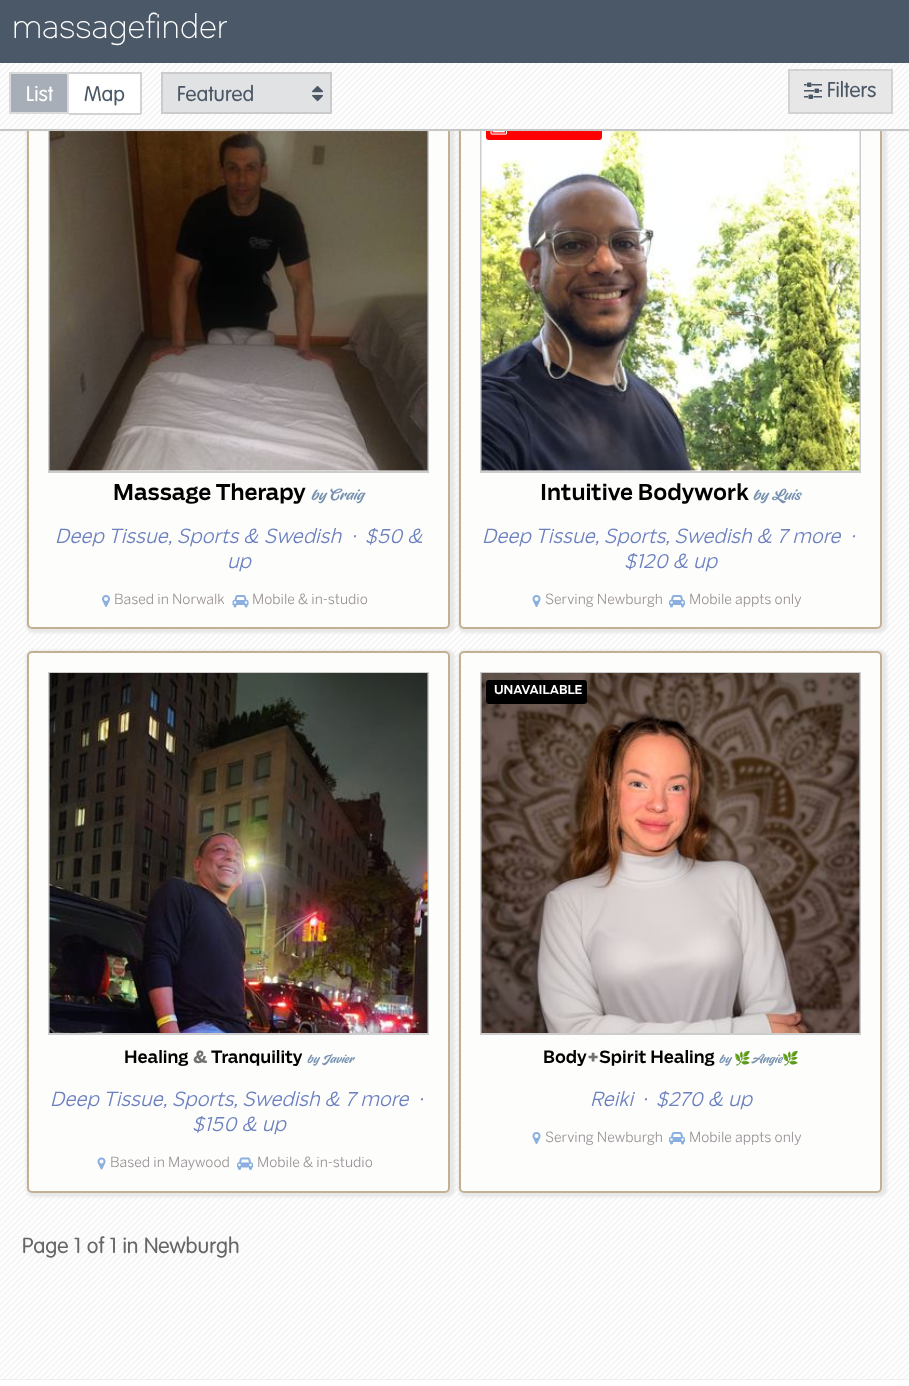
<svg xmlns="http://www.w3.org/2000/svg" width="909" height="1386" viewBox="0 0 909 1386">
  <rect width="100%" height="100%" fill="#fff"/>
  <path d="M0 1379h909v1H0z" fill="#e7e7e7"/>
  <image x="0" y="131" width="909" height="1249" href="img/1.png"/>
  <rect x="26" y="86" width="429" height="547" rx="8" fill="#e8e8e8" filter="blur(1px)"/>
  <rect x="28" y="88" width="421" height="540" rx="4" fill="#fdfdfb" stroke="#c2b191" stroke-width="2"/>
  <path d="M49 109h379v363H49z" fill="none" stroke="#ccc" stroke-width="2"/>
  <rect x="458" y="86" width="429" height="547" rx="8" fill="#e8e8e8" filter="blur(1px)"/>
  <rect x="460" y="88" width="421" height="540" rx="4" fill="#fdfdfb" stroke="#c2b191" stroke-width="2"/>
  <path d="M481 109h379v363H481z" fill="none" stroke="#ccc" stroke-width="2"/>
  <image x="481" y="131" width="379" height="340" href="img/9.png"/>
  <rect x="487" y="117" width="114" height="22" rx="2" fill="#f00" stroke="#f00" stroke-width="2"/>
  <path d="M0 129h909v2H0z" fill="#ccc"/>
  <image x="49" y="131" width="379" height="340" href="img/5.png"/>
  <image x="490" y="131" width="18" height="4" href="img/8.png"/>
  <path d="M-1 56h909v72H-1z" fill="#b1b1b1" filter="blur(2px)"/>
  <path d="M0 0h909v63H0z" fill="#4b5867"/>
  <image x="0" y="63" width="909" height="66" href="img/2.png"/>
  <path d="M10 73h58v40H10z" fill="#a7aeb7" stroke="#dadada" stroke-width="2"/>
  <path d="M69 74h71v39H69z" fill="#fff"/>
  <path d="M69 72h72v2H69z" fill="#d2d2d2"/>
  <path d="M140 72h2v42H140z" fill="#d2d2d2"/>
  <path d="M69 113h72v2H69z" fill="#d2d2d2"/>
  <path d="M162 73h169v40H162z" fill="#e1e2e4" stroke="#cccaca" stroke-width="2"/>
  <image x="312" y="86" width="12" height="16" href="img/3.png"/>
  <path d="M789 70h103v43H789z" fill="#e7e7e7" stroke="#d2d2d2" stroke-width="2"/>
  <image x="804" y="82" width="18" height="17" href="img/4.png"/>
  <image x="102" y="595" width="8" height="12" href="img/6.png"/>
  <image x="232" y="595" width="17" height="13" href="img/7.png"/>
  <image x="532" y="595" width="9" height="12" href="img/10.png"/>
  <image x="669" y="595" width="17" height="13" href="img/11.png"/>
  <rect x="26" y="650" width="429" height="547" rx="8" fill="#e8e8e8" filter="blur(1px)"/>
  <rect x="28" y="652" width="421" height="540" rx="4" fill="#fdfdfb" stroke="#c2b191" stroke-width="2"/>
  <path d="M49 673h379v361H49z" fill="none" stroke="#ccc" stroke-width="2"/>
  <image x="49" y="673" width="379" height="360" href="img/12.png"/>
  <image x="97" y="1157" width="9" height="13" href="img/13.png"/>
  <image x="237" y="1157" width="17" height="13" href="img/14.png"/>
  <rect x="458" y="650" width="429" height="547" rx="8" fill="#e8e8e8" filter="blur(1px)"/>
  <rect x="460" y="652" width="421" height="540" rx="4" fill="#fdfdfb" stroke="#c2b191" stroke-width="2"/>
  <path d="M481 673h379v361H481z" fill="none" stroke="#ccc" stroke-width="2"/>
  <image x="481" y="673" width="379" height="360" href="img/15.png"/>
  <rect x="487" y="681" width="99" height="22" rx="2" fill="#000" stroke="#000" stroke-width="2"/>
  <image x="532" y="1132" width="9" height="12" href="img/10.png"/>
  <image x="669" y="1132" width="17" height="13" href="img/11.png"/>
  <text x="12" y="38" font-family="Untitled" font-size="33.5" fill="#fff">massagefinder</text>
  <text x="26" y="101" font-family="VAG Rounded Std" font-size="21" font-weight="300" fill="#fff">List</text>
  <g font-family="VAG Rounded Std" font-size="21" font-weight="300" fill="#4b5765">
    <text x="84" y="101">Map</text>
    <text x="177" y="101">Featured</text>
    <text x="827" y="97">Filters</text>
  </g>
  <text x="113" y="500" font-family="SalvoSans" font-size="21.6" font-weight="500" fill="#000">Massage Therapy</text>
  <text x="311" y="500" font-family="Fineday" font-size="17" fill="#7792b1">by Craig</text>
  <g font-family="SalvoSans" font-size="19.4" font-weight="300" font-style="italic" fill="#6c80c0">
    <text x="55" y="543">Deep Tissue, Sports &amp; Swedish</text>
    <text x="351" y="543" xml:space="preserve">·  $50 &amp;</text>
    <text x="227" y="568">up</text>
  </g>
  <g font-family="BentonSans" font-size="14" fill="#9a9297">
    <text x="114" y="604">Based in Norwalk</text>
    <text x="252" y="604">Mobile &amp; in-studio</text>
  </g>
  <text x="540" y="500" font-family="SalvoSans" font-size="21.6" font-weight="500" fill="#000">Intuitive Bodywork</text>
  <text x="753" y="500" font-family="Fineday" font-size="17" fill="#7792b1">by Luis</text>
  <g font-family="SalvoSans" font-size="19.4" font-weight="300" font-style="italic" fill="#6c80c0">
    <text x="482" y="543">Deep Tissue, Sports, Swedish &amp; 7 more</text>
    <text x="850" y="543">·</text>
    <text x="624" y="568">$120 &amp; up</text>
  </g>
  <g font-family="BentonSans" font-size="14" fill="#9a9297">
    <text x="545" y="604">Serving Newburgh</text>
    <text x="689" y="604">Mobile appts only</text>
  </g>
  <text x="124" y="1063" font-family="SalvoSans" font-size="16.75" font-weight="500" fill="#000">Healing</text>
  <text x="193" y="1063" font-family="SalvoSans" font-size="16.75" font-weight="bold" fill="#737272">&amp;</text>
  <text x="211" y="1063" font-family="SalvoSans" font-size="16.75" font-weight="500" fill="#000">Tranquility</text>
  <text x="307" y="1063" font-family="Fineday" font-size="13.5" fill="#7792b1">by Javier</text>
  <g font-family="SalvoSans" font-size="19.4" font-weight="300" font-style="italic" fill="#6c80c0">
    <text x="50" y="1106">Deep Tissue, Sports, Swedish &amp; 7 more</text>
    <text x="418" y="1106">·</text>
    <text x="192" y="1131">$150 &amp; up</text>
  </g>
  <g font-family="BentonSans" font-size="14" fill="#9a9297">
    <text x="110" y="1167">Based in Maywood</text>
    <text x="257" y="1167">Mobile &amp; in-studio</text>
  </g>
  <text x="494" y="694" font-family="SalvoSans" font-size="12" font-weight="500" fill="#fff">UNAVAILABLE</text>
  <text x="543" y="1063" font-family="SalvoSans" font-size="16.75" font-weight="500" fill="#000">Body</text>
  <text x="587" y="1063" font-family="SalvoSans" font-size="16.75" font-weight="bold" fill="#737272">+</text>
  <text x="599" y="1063" font-family="SalvoSans" font-size="16.75" font-weight="500" fill="#000">Spirit Healing</text>
  <text x="719" y="1063" font-family="Fineday" font-size="13.5" fill="#7792b1">by</text>
  <text x="734" y="1063" font-family="Noto Color Emoji" font-size="13.5" fill="#7792b1">🌿</text>
  <text x="751" y="1063" font-family="Fineday" font-size="13.5" fill="#7792b1">Angie</text>
  <text x="782" y="1063" font-family="Noto Color Emoji" font-size="13.5" fill="#7792b1">🌿</text>
  <g font-family="SalvoSans" font-size="19.4" font-weight="300" font-style="italic" fill="#6c80c0">
    <text x="590" y="1106">Reiki</text>
    <text x="642" y="1106" xml:space="preserve">·  $270 &amp; up</text>
  </g>
  <g font-family="BentonSans" font-size="14" fill="#9a9297">
    <text x="545" y="1142">Serving Newburgh</text>
    <text x="689" y="1142">Mobile appts only</text>
  </g>
  <text x="22" y="1253" font-family="VAG Rounded Std" font-size="21.6" font-weight="300" fill="#666">Page 1 of 1 in Newburgh</text>
</svg>
